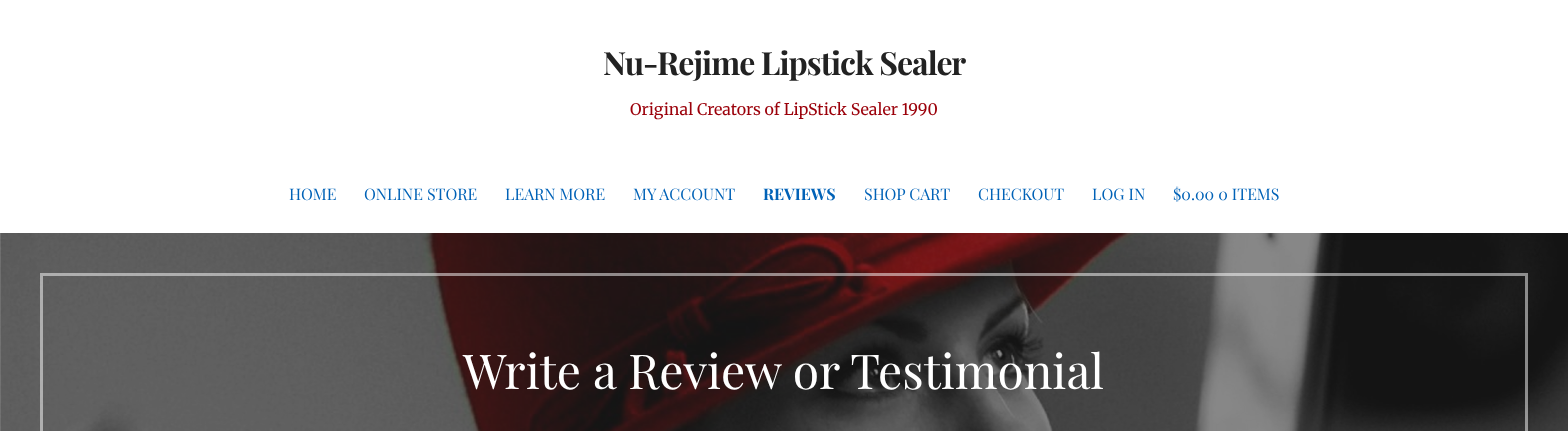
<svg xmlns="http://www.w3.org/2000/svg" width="1568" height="431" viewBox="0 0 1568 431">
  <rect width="100%" height="100%" fill="#fff"/>
  <image x="0" y="233" width="1568" height="198" href="img/1.png"/>
  <path d="M41.5 274.5h1485v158H41.5z" fill="none" stroke="#ffffff80" stroke-width="3"/>
  <text x="603" y="75" font-family="Playfair Display" font-size="32" font-weight="bold" letter-spacing="-0.95" fill="#222">Nu-Rejime Lipstick Sealer</text>
  <text x="630" y="115" font-family="Merriweather" font-size="16" fill="#9b000a">Original Creators of LipStick Sealer 1990</text>
  <g font-family="Playfair Display" font-size="16" fill="#0162b7">
    <text x="289" y="200">HOME</text>
    <text x="364" y="200">ONLINE STORE</text>
    <text x="505" y="200">LEARN MORE</text>
    <text x="633" y="200">MY ACCOUNT</text>
  </g>
  <text x="763" y="200" font-family="Playfair Display" font-size="16" font-weight="bold" fill="#0162b7">REVIEWS</text>
  <g font-family="Playfair Display" font-size="16" fill="#0162b7">
    <text x="864" y="200">SHOP CART</text>
    <text x="978" y="200">CHECKOUT</text>
    <text x="1092" y="200">LOG IN</text>
    <text x="1173" y="200">$0.00 0 ITEMS</text>
  </g>
  <text x="463" y="389" font-family="Playfair Display" font-size="48" fill="#fff">Write a Review or Testimonial</text>
</svg>
